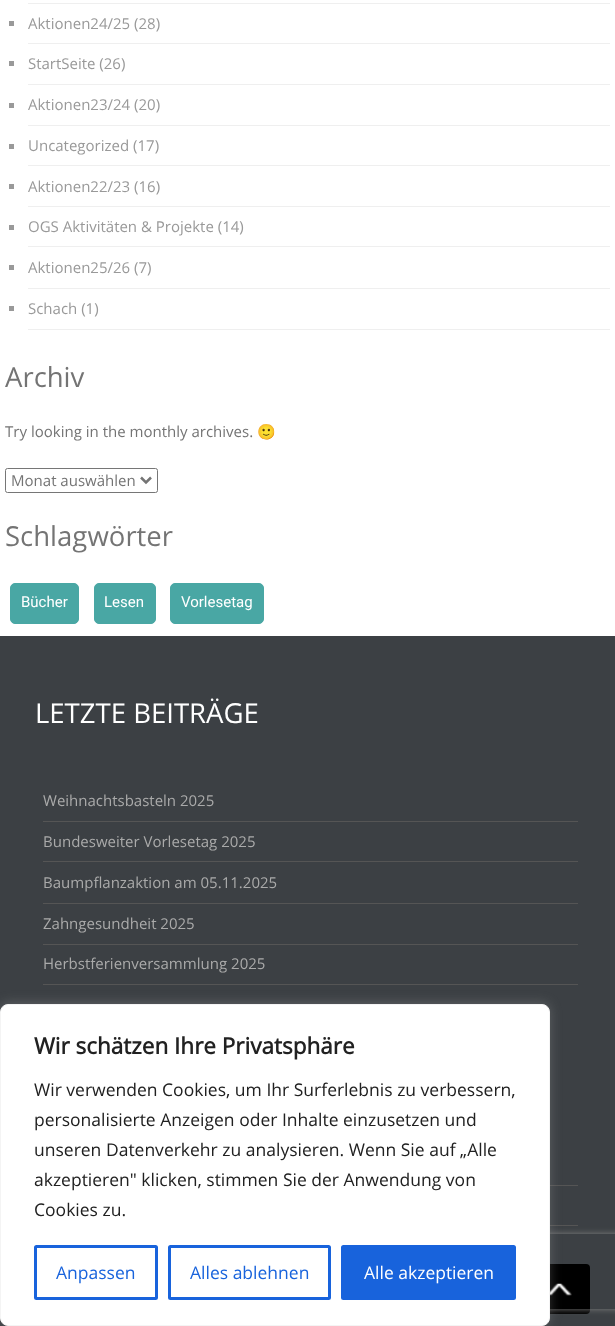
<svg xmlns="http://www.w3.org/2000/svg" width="615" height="1326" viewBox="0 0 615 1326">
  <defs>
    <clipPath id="clip1"><path d="M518 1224H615V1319H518ZM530.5 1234H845.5C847 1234 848 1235 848 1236.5V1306.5C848 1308 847 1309 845.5 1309H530.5C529 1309 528 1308 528 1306.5V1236.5C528 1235 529 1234 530.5 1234Z" clip-rule="evenodd"/></clipPath>
  </defs>
  <rect width="100%" height="100%" fill="#fff"/>
  <path d="M28 3h582v1H28z" fill="#efefef"/>
  <path d="M28 43h582v1H28z" fill="#efefef"/>
  <path d="M9 21h5v5H9z" fill="#999"/>
  <path d="M28 84h582v1H28z" fill="#efefef"/>
  <path d="M9 61h5v5H9z" fill="#999"/>
  <path d="M28 125h582v1H28z" fill="#efefef"/>
  <path d="M9 103h5v5H9z" fill="#999"/>
  <path d="M28 165h582v1H28z" fill="#efefef"/>
  <path d="M9 144h5v5H9z" fill="#999"/>
  <path d="M28 206h582v1H28z" fill="#efefef"/>
  <path d="M9 184h5v5H9z" fill="#999"/>
  <path d="M28 246h582v1H28z" fill="#efefef"/>
  <path d="M9 225h5v5H9z" fill="#999"/>
  <path d="M28 288h582v1H28z" fill="#efefef"/>
  <path d="M9 265h5v5H9z" fill="#999"/>
  <path d="M28 329h582v1H28z" fill="#efefef"/>
  <path d="M9 306h5v5H9z" fill="#999"/>
  <rect x="5.5" y="468.5" width="152" height="24" rx="2" fill="none" stroke="#767676"/>
  <path d="M141 477.5L146 482.5L151 477.5" fill="none" stroke="#747474" stroke-width="2.5"/>
  <rect x="10.5" y="583.5" width="68" height="40" rx="4.5" fill="#49a7a4" stroke="#49a7a4"/>
  <rect x="94.5" y="583.5" width="61" height="40" rx="4.5" fill="#49a7a4" stroke="#49a7a4"/>
  <rect x="170.5" y="583.5" width="93" height="40" rx="4.5" fill="#49a7a4" stroke="#49a7a4"/>
  <path d="M0 636h615v690H0z" fill="#3c4044"/>
  <path d="M43 821h535v1H43z" fill="#555"/>
  <path d="M43 861h535v1H43z" fill="#555"/>
  <path d="M43 903h535v1H43z" fill="#555"/>
  <path d="M43 944h535v1H43z" fill="#555"/>
  <path d="M43 984h535v1H43z" fill="#555"/>
  <path d="M550 1185h28v1H550z" fill="#555"/>
  <path d="M550 1225h28v1H550z" fill="#555"/>
  <rect x="528" y="1264" width="62" height="50" rx="4" fill="#000"/>
  <image x="550" y="1283" width="22" height="13" href="img/1.png"/>
  <rect y="1003" width="550" height="322" rx="8" fill="#acabab4d" filter="blur(6px)"/>
  <g clip-path="url(#clip1)">
    <rect x="528" y="1234" width="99" height="75" rx="2.5" fill="#808080" filter="blur(3px)"/>
  </g>
  <rect x="0.5" y="1004.5" width="549" height="321" rx="7.5" fill="#fff" stroke="#f4f4f4"/>
  <rect x="35.5" y="1246.5" width="121" height="52" rx="1" fill="none" stroke="#1863dc" stroke-width="3"/>
  <rect x="169.5" y="1246.5" width="160" height="52" rx="1" fill="none" stroke="#1863dc" stroke-width="3"/>
  <rect x="342.5" y="1246.5" width="172" height="52" rx="1" fill="#1863dc" stroke="#1863dc" stroke-width="3"/>
  <g font-family="Open Sans" font-size="15" fill="#999">
    <text x="28" y="29">Aktionen24/25 (28)</text>
    <text x="28" y="69">StartSeite (26)</text>
    <text x="28" y="110">Aktionen23/24 (20)</text>
    <text x="28" y="151">Uncategorized (17)</text>
    <text x="28" y="192">Aktionen22/23 (16)</text>
    <text x="28" y="232">OGS Aktivitäten &amp; Projekte (14)</text>
    <text x="28" y="273">Aktionen25/26 (7)</text>
    <text x="28" y="314">Schach (1)</text>
  </g>
  <text x="5" y="387" font-family="Open Sans" font-size="27.5" fill="#747474">Archiv</text>
  <text x="5" y="437" font-family="Open Sans" font-size="15" fill="#747474">Try looking in the monthly archives.</text>
  <text x="257" y="437" font-family="Noto Color Emoji" font-size="15" fill="#747474">🙂</text>
  <text x="11" y="486" font-family="Open Sans" font-size="15" fill="#747474">Monat auswählen</text>
  <text x="5" y="546" font-family="Open Sans" font-size="27.5" fill="#747474">Schlagwörter</text>
  <g font-family="Roboto" font-size="15" fill="#fff">
    <text x="21" y="607">Bücher</text>
    <text x="104" y="607">Lesen</text>
    <text x="181" y="607">Vorlesetag</text>
  </g>
  <text x="35" y="723" font-family="Open Sans" font-size="27.5" fill="#fff">LETZTE BEITRÄGE</text>
  <g font-family="Open Sans" font-size="15" fill="#aaa">
    <text x="43" y="806">Weihnachtsbasteln 2025</text>
    <text x="43" y="847">Bundesweiter Vorlesetag 2025</text>
    <text x="43" y="888">Baumpflanzaktion am 05.11.2025</text>
    <text x="43" y="929">Zahngesundheit 2025</text>
    <text x="43" y="969">Herbstferienversammlung 2025</text>
  </g>
  <text x="34" y="1054" font-family="Open Sans" font-size="22.5" font-weight="bold" fill="#212121">Wir schätzen Ihre Privatsphäre</text>
  <g font-family="Open Sans" font-size="17.5" fill="#212121">
    <text x="34" y="1096">Wir verwenden Cookies, um Ihr Surferlebnis zu verbessern,</text>
    <text x="34" y="1126">personalisierte Anzeigen oder Inhalte einzusetzen und</text>
    <text x="34" y="1156">unseren Datenverkehr zu analysieren. Wenn Sie auf „Alle</text>
    <text x="34" y="1186">akzeptieren" klicken, stimmen Sie der Anwendung von</text>
    <text x="34" y="1216">Cookies zu.</text>
  </g>
  <g font-family="Open Sans" font-size="17.5" fill="#1863dc">
    <text x="56" y="1279">Anpassen</text>
    <text x="190" y="1279">Alles ablehnen</text>
  </g>
  <text x="364" y="1279" font-family="Open Sans" font-size="17.5" fill="#fff">Alle akzeptieren</text>
</svg>
